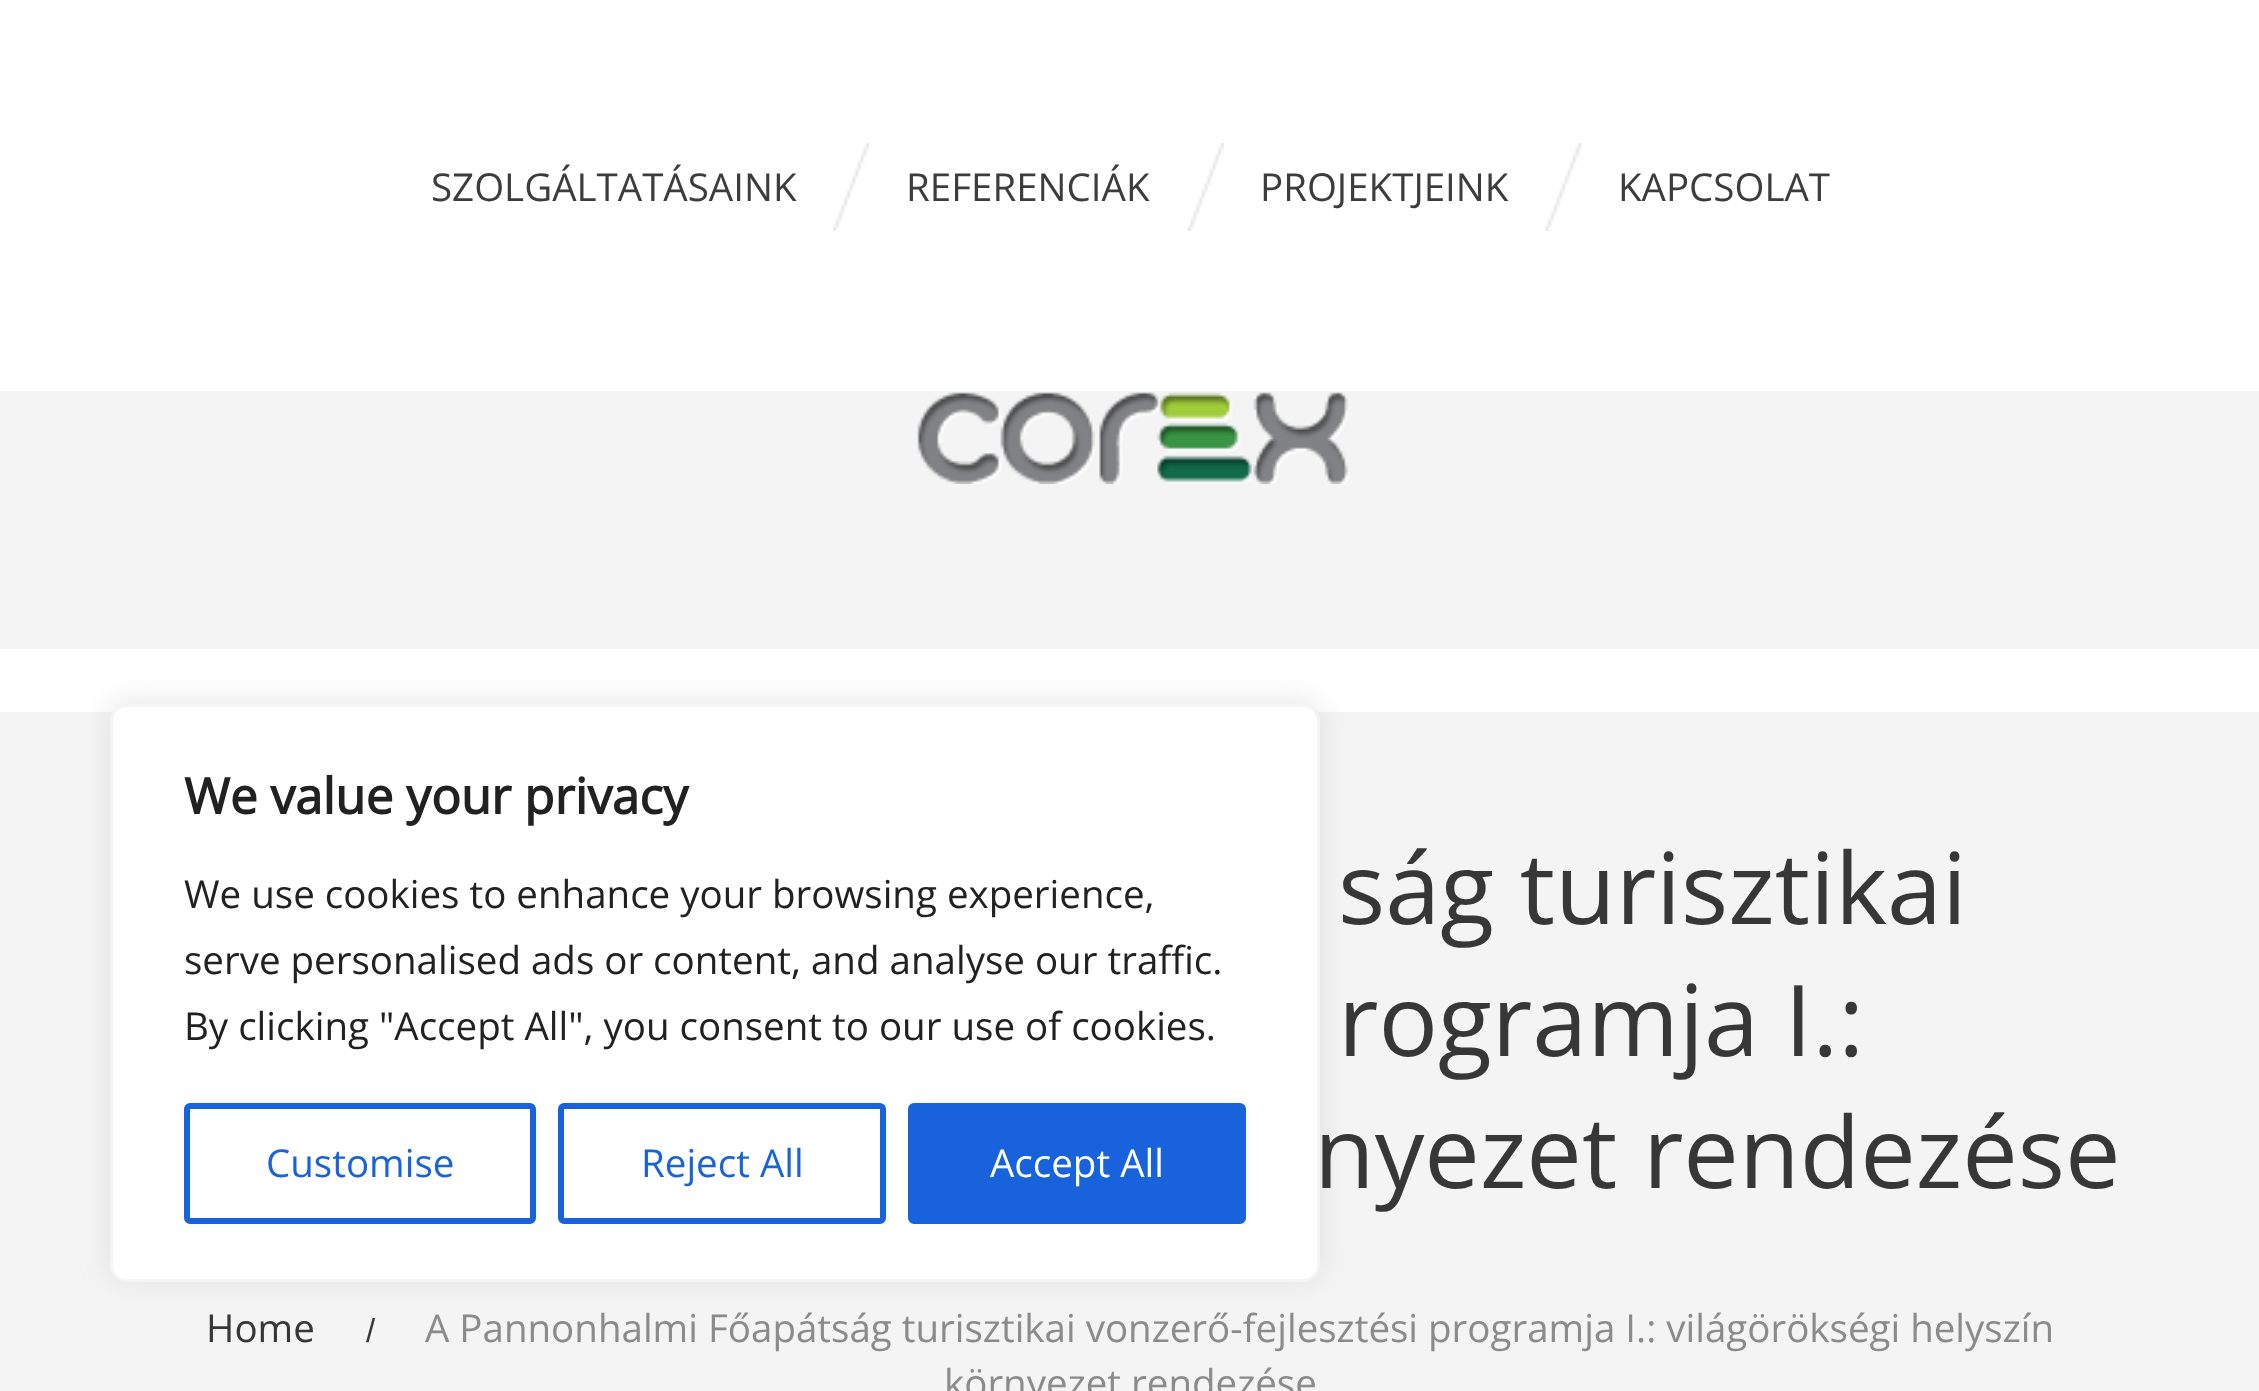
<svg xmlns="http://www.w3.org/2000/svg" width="2259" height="1391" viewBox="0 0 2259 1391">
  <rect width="100%" height="100%" fill="#fff"/>
  <image x="833" y="143" width="36" height="88" href="img/1.png"/>
  <image x="1188" y="143" width="36" height="88" href="img/2.png"/>
  <image x="1545" y="143" width="37" height="88" href="img/3.png"/>
  <path d="M0 391h2259v258H0z" fill="#f4f4f4"/>
  <image x="917" y="392" width="433" height="92" href="img/4.png"/>
  <path d="M0 712h135v679H0z" fill="#f4f4f4"/>
  <path d="M135 712h2124v679H135z" fill="#f4f4f4"/>
  <rect x="110" y="701" width="1210" height="578" rx="17" fill="#acabab4d" filter="blur(14px)"/>
  <rect x="111.5" y="705.5" width="1207" height="575" rx="15.5" fill="#fff" stroke="#f4f4f4" stroke-width="3"/>
  <rect x="187" y="1106" width="346" height="115" rx="3" fill="none" stroke="#1863dc" stroke-width="6"/>
  <rect x="561" y="1106" width="322" height="115" rx="3" fill="none" stroke="#1863dc" stroke-width="6"/>
  <rect x="911" y="1106" width="332" height="115" rx="3" fill="#1863dc" stroke="#1863dc" stroke-width="6"/>
  <g font-family="Open Sans" font-size="38.5" fill="#3d3c3c">
    <text x="431" y="201">SZOLGÁLTATÁSAINK</text>
    <text x="906" y="201">REFERENCIÁK</text>
    <text x="1260" y="201">PROJEKTJEINK</text>
    <text x="1618" y="201">KAPCSOLAT</text>
  </g>
  <g font-family="Open Sans" font-size="99" fill="#373737">
    <text x="1338" y="924">ság turisztikai</text>
    <text x="1338" y="1056">rogramja I.:</text>
    <text x="1314" y="1188">nyezet rendezése</text>
  </g>
  <text x="206" y="1342" font-family="Open Sans" font-size="38.5" fill="#373737">Home</text>
  <text x="366" y="1342" font-family="Liberation Sans" font-size="33" fill="#373737">/</text>
  <g font-family="Open Sans" font-size="38.5" fill="#8b8b8b">
    <text x="425" y="1342">A Pannonhalmi Főapátság turisztikai vonzerő-fejlesztési programja I.: világörökségi helyszín</text>
    <text x="944" y="1397">környezet rendezése</text>
  </g>
  <text x="184" y="814" font-family="Open Sans" font-size="49.5" font-weight="bold" fill="#212121">We value your privacy</text>
  <g font-family="Open Sans" font-size="38.5" fill="#212121">
    <text x="184" y="908">We use cookies to enhance your browsing experience,</text>
    <text x="184" y="974">serve personalised ads or content, and analyse our traffic.</text>
    <text x="184" y="1040">By clicking "Accept All", you consent to our use of cookies.</text>
  </g>
  <g font-family="Open Sans" font-size="38.5" fill="#1863dc">
    <text x="266" y="1177">Customise</text>
    <text x="641" y="1177">Reject All</text>
  </g>
  <text x="990" y="1177" font-family="Open Sans" font-size="38.5" fill="#fff">Accept All</text>
</svg>
